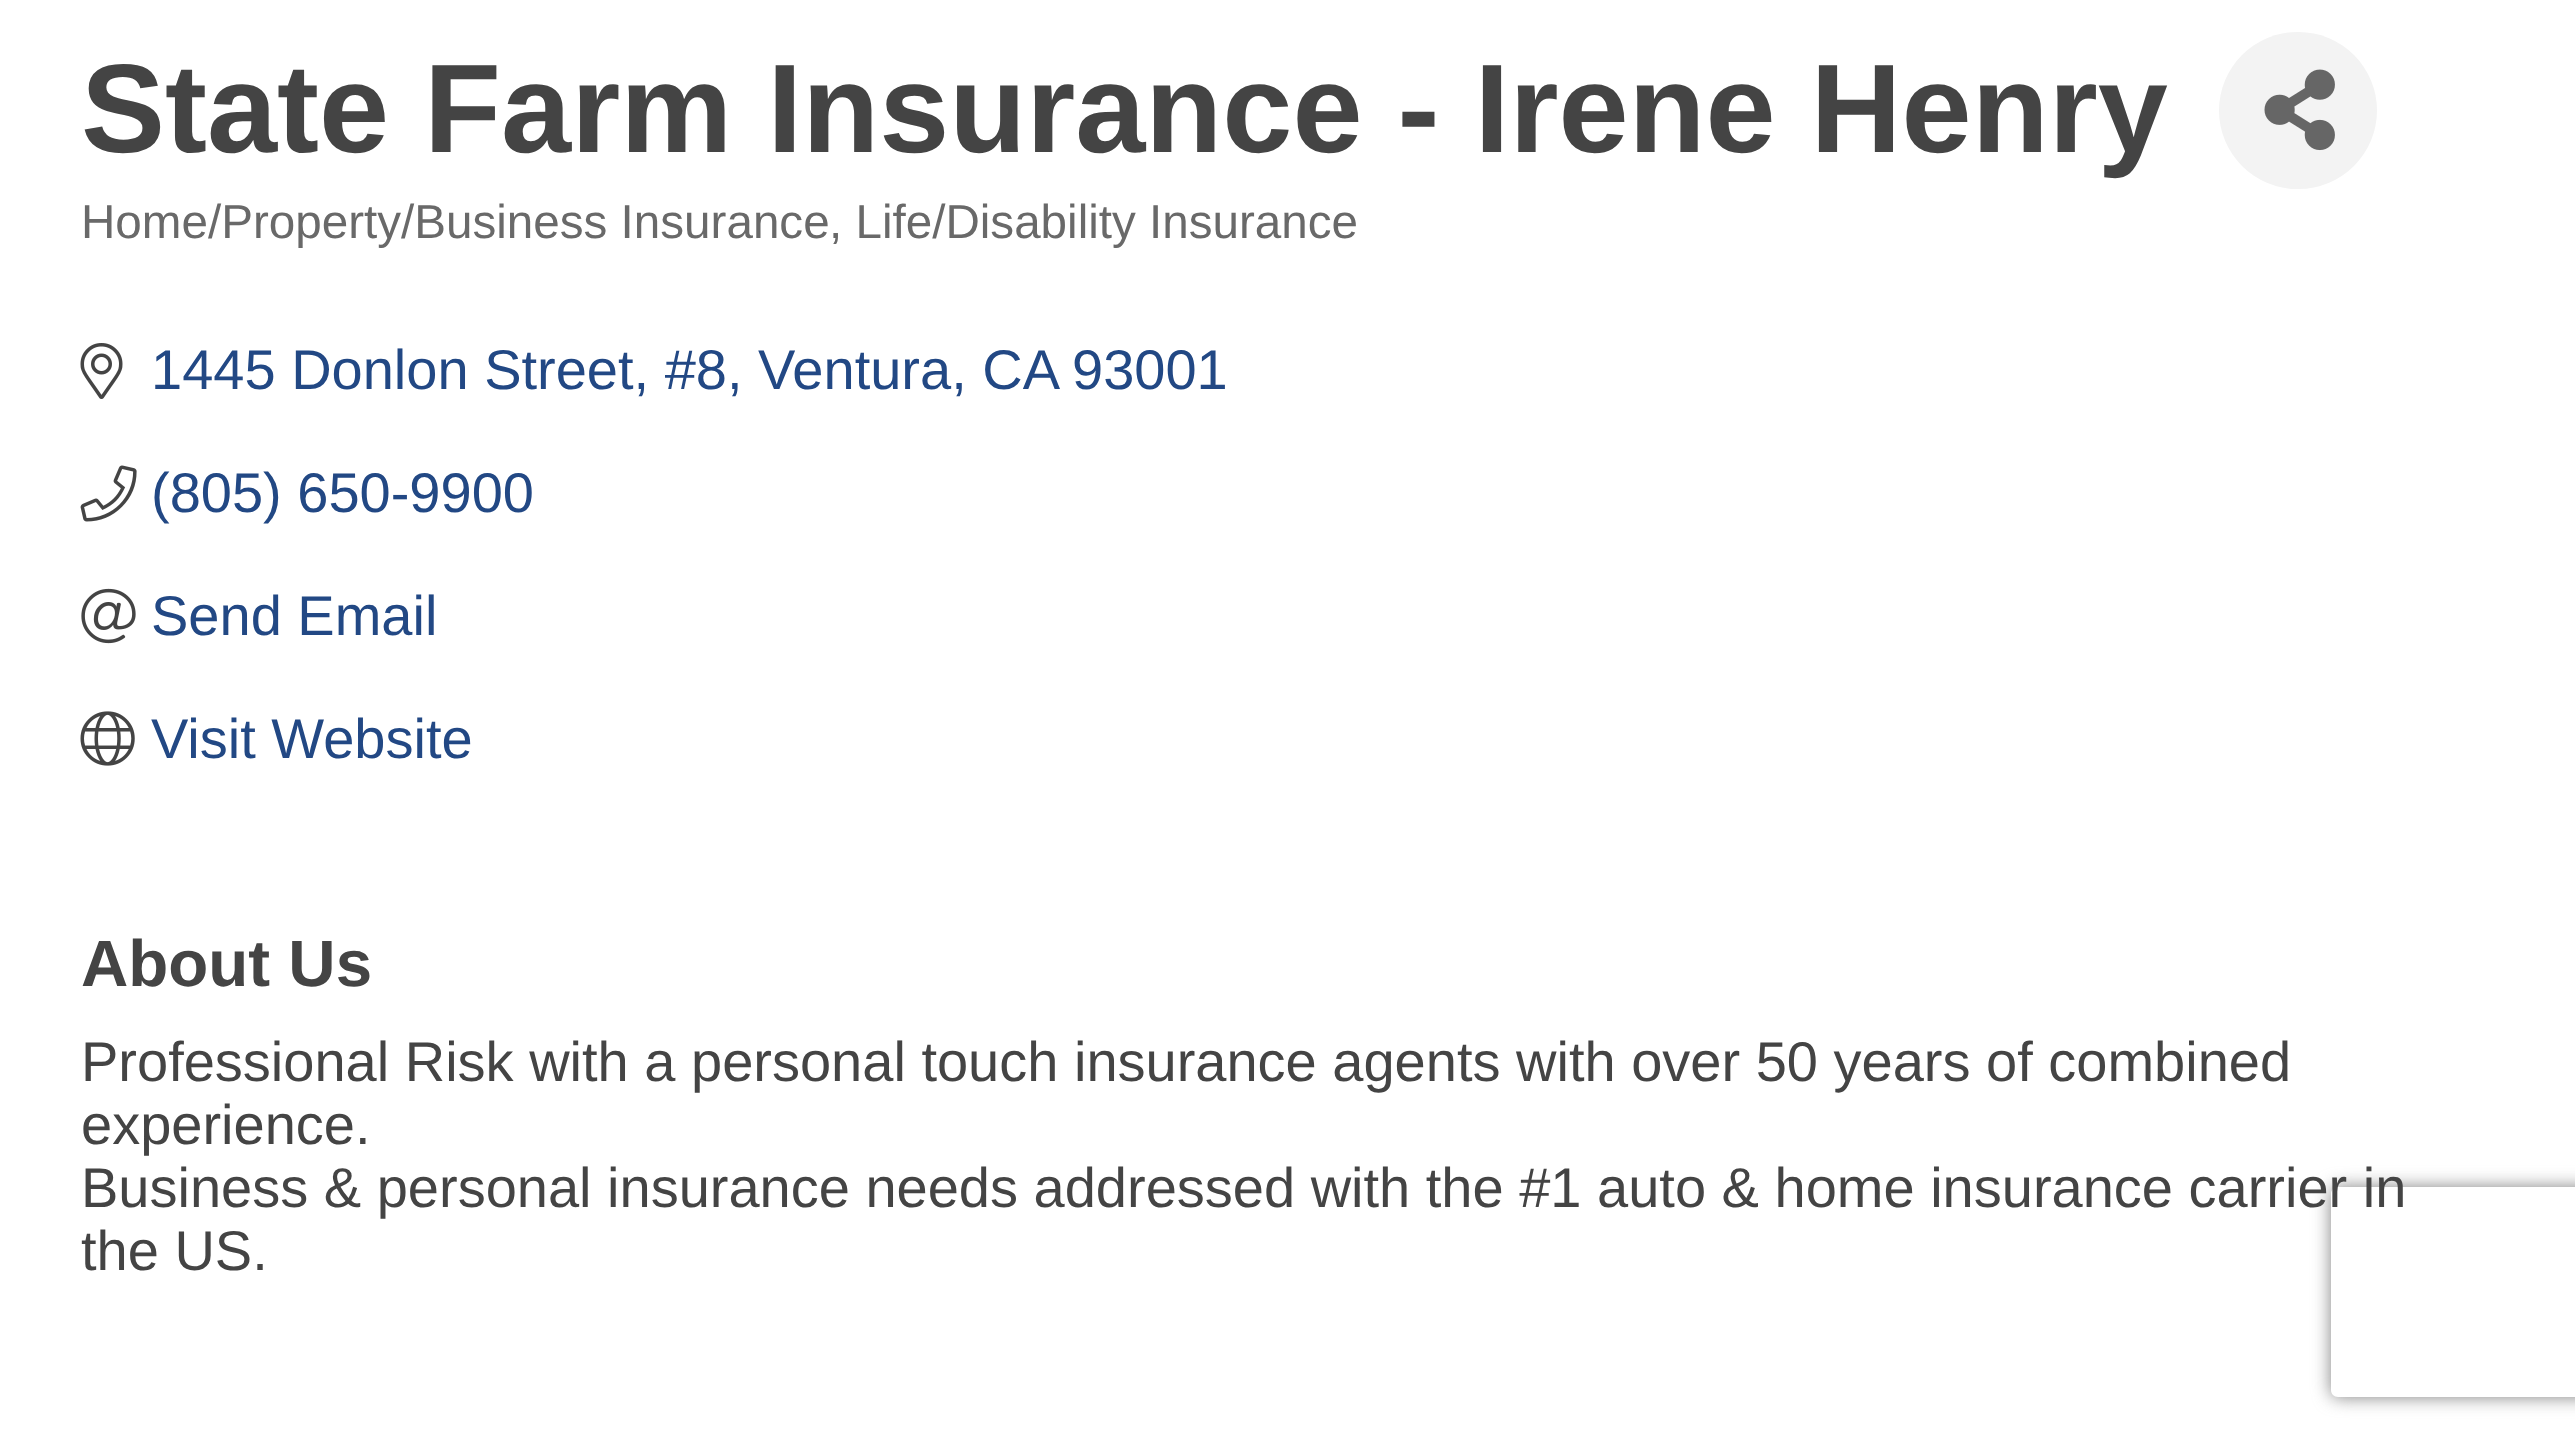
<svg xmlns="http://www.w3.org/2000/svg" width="2575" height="1444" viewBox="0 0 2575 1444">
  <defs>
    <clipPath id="clip1"><path d="M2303 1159H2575V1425H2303ZM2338 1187H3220C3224 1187 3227 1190 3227 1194V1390C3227 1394 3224 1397 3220 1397H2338C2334 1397 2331 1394 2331 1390V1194C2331 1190 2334 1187 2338 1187Z" clip-rule="evenodd"/></clipPath>
  </defs>
  <rect width="100%" height="100%" fill="#fff"/>
  <rect x="2219" y="32" width="158" height="157" rx="78.5" fill="#f3f3f3"/>
  <image x="2264" y="69" width="71" height="82" href="img/1.png"/>
  <image x="80" y="343" width="43" height="56" href="img/2.png"/>
  <image x="80" y="465" width="57" height="57" href="img/3.png"/>
  <image x="81" y="588" width="55" height="56" href="img/4.png"/>
  <image x="80" y="711" width="55" height="55" href="img/5.png"/>
  <g clip-path="url(#clip1)">
    <rect x="2331" y="1187" width="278" height="210" rx="7" fill="#808080" filter="blur(9px)"/>
  </g>
  <text x="81" y="152" font-family="Liberation Sans" font-size="126" font-weight="bold" fill="#444">State Farm Insurance - Irene Henry</text>
  <g font-family="Liberation Sans" font-size="47.6" fill="#696969">
    <text x="81" y="238">Home/Property/Business Insurance</text>
    <text x="829" y="238">, Life/Disability Insurance</text>
  </g>
  <g font-family="Liberation Sans" font-size="56" fill="#224884">
    <text x="151" y="389">1445 Donlon Street, #8, Ventura, CA</text>
    <text x="1072" y="389">93001</text>
    <text x="151" y="512">(805) 650-9900</text>
    <text x="151" y="635">Send Email</text>
    <text x="151" y="758">Visit Website</text>
  </g>
  <text x="81" y="986" font-family="Liberation Sans" font-size="65.5" font-weight="bold" fill="#444">About Us</text>
  <g font-family="Liberation Sans" font-size="56" fill="#444">
    <text x="81" y="1081">Professional Risk with a personal touch insurance agents with over 50 years of combined</text>
    <text x="81" y="1144">experience.</text>
    <text x="81" y="1207">Business &amp; personal insurance needs addressed with the #1 auto &amp; home insurance carrier in</text>
    <text x="81" y="1270">the US.</text>
  </g>
</svg>
